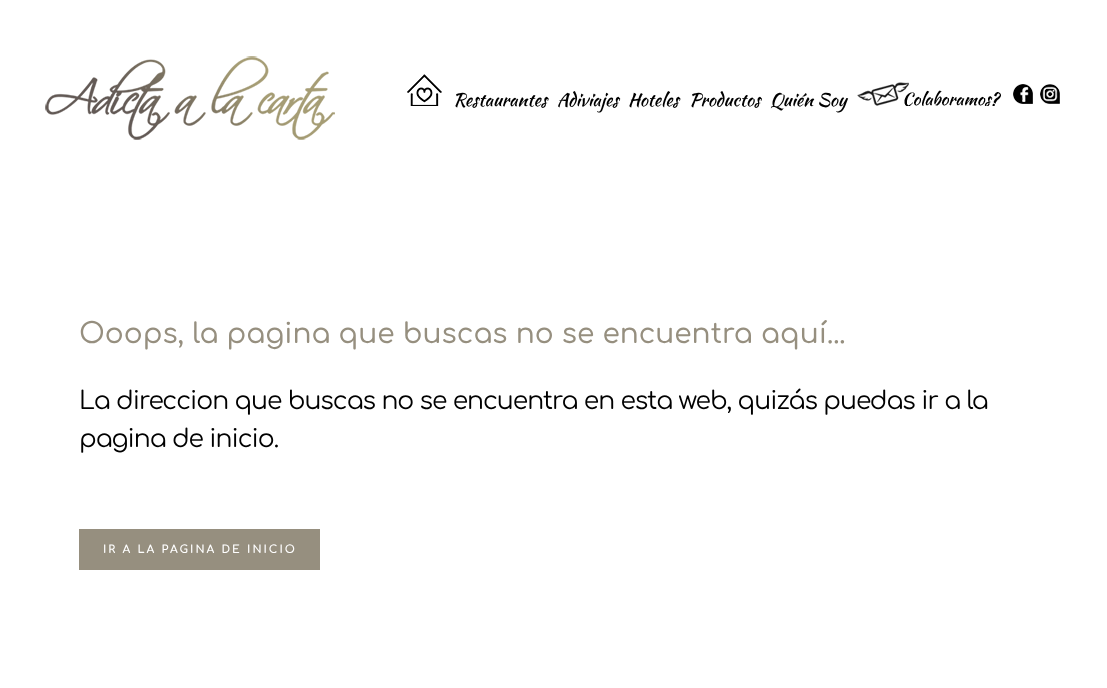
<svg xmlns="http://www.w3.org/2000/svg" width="1107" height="688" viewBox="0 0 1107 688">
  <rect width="100%" height="100%" fill="#fff"/>
  <image x="45" y="56" width="290" height="84" href="img/1.png"/>
  <image x="407" y="74" width="35" height="32" href="img/2.png"/>
  <image x="857" y="82" width="144" height="24" href="img/3.png"/>
  <image x="1013" y="84" width="20" height="20" href="img/4.png"/>
  <image x="1040" y="84" width="20" height="20" href="img/5.png"/>
  <path d="M79 529h241v41H79z" fill="#968f7f"/>
  <g font-family="Kaushan Script" font-size="18" fill="#000">
    <text x="453" y="106">Restaurantes</text>
    <text x="557" y="106">Adiviajes</text>
    <text x="628" y="106">Hoteles</text>
    <text x="689" y="106">Productos</text>
    <text x="770" y="106">Quién Soy</text>
  </g>
  <text x="79" y="343" font-family="Comfortaa" font-size="28" font-weight="500" fill="#968f7f">Ooops, la pagina que buscas no se encuentra aquí...</text>
  <g font-family="Comfortaa" font-size="25" letter-spacing="-1" fill="#000">
    <text x="79" y="409">La direccion que buscas no se encuentra en esta web, quizás puedas ir a la</text>
    <text x="79" y="447">pagina de inicio.</text>
  </g>
  <text x="103" y="553" font-family="Comfortaa" font-size="11" font-weight="bold" letter-spacing="2" fill="#fff">IR A LA PAGINA DE INICIO</text>
</svg>
